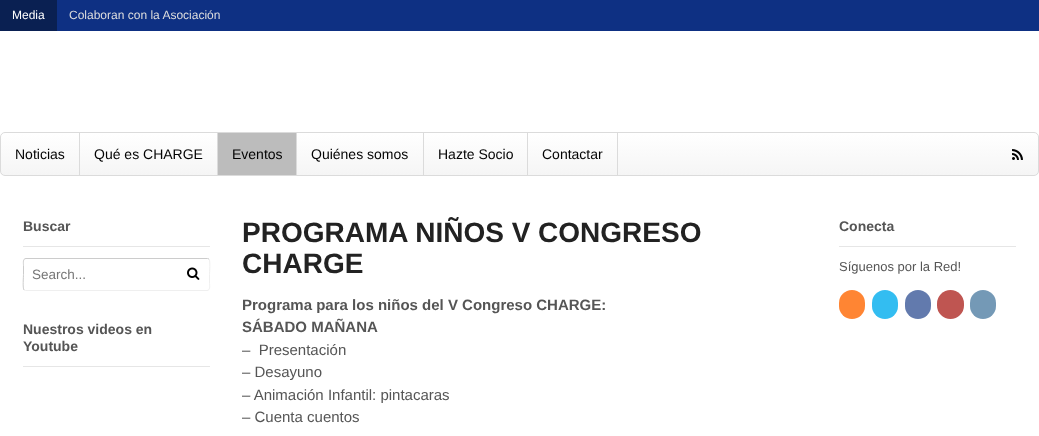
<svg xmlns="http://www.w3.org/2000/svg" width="1039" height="436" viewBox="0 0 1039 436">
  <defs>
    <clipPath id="clip1"><rect y="132" width="1039" height="44" rx="5"/></clipPath>
    <linearGradient id="g1" gradientUnits="userSpaceOnUse" x1="520" y1="133" x2="520" y2="175"><stop offset="0" stop-color="#fff"/><stop offset="1" stop-color="#f5f5f5"/></linearGradient>
  </defs>
  <rect width="100%" height="100%" fill="#fff"/>
  <path d="M57 0h982v31H57z" fill="#0e3083"/>
  <path d="M0 0h57v31H0z" fill="#0a2052"/>
  <g clip-path="url(#clip1)">
    <path d="M0 133h1039v42H0z" fill="url(#g1)"/>
  </g>
  <rect x="0.5" y="132.5" width="1038" height="43" rx="4.5" fill="none" stroke="#dbdbdb"/>
  <path d="M79 133h1v42H79z" fill="#dbdbdb"/>
  <path d="M217 133h1v42H217z" fill="#dbdbdb"/>
  <path d="M296 133h1v42H296z" fill="#dbdbdb"/>
  <path d="M218 133h78v42H218z" fill="#bcbcbc"/>
  <path d="M423 133h1v42H423z" fill="#dbdbdb"/>
  <path d="M527 133h1v42H527z" fill="#dbdbdb"/>
  <path d="M617 133h1v42H617z" fill="#dbdbdb"/>
  <image x="1012" y="149" width="11" height="11" href="img/1.png"/>
  <path d="M23 246h187v1H23z" fill="#e6e6e6"/>
  <path d="M209 259C210.5 261 209.5 272 209.5 274.5V283.5C209.5 285.5 210.5 290.5 207 290.5H25.5L24 290" fill="none" stroke="#efefef"/>
  <path d="M24 290C22.5 288 23.5 277 23.5 274.5V265.5C23.5 263.5 22.5 258.5 26 258.5H207.5L209 259" fill="none" stroke="#ccc"/>
  <image x="187" y="267" width="13" height="13" href="img/2.png"/>
  <path d="M23 366h187v1H23z" fill="#e6e6e6"/>
  <path d="M839 246h177v1H839z" fill="#e6e6e6"/>
  <rect x="839" y="290" width="26" height="29" rx="13" fill="#ff8533"/>
  <rect x="872" y="290" width="26" height="29" rx="13" fill="#33bdf1"/>
  <rect x="905" y="290" width="26" height="29" rx="13" fill="#627aad"/>
  <rect x="937" y="290" width="27" height="29" rx="13.5" fill="#bf5551"/>
  <rect x="970" y="290" width="26" height="29" rx="13" fill="#7499b6"/>
  <text x="12" y="19" font-family="Liberation Sans" font-size="12" fill="#fff">Media</text>
  <text x="69" y="19" font-family="Liberation Sans" font-size="12" fill="#ddd">Colaboran con la Asociación</text>
  <g font-family="Liberation Sans" font-size="14" fill="#020202">
    <text x="15" y="159">Noticias</text>
    <text x="94" y="159">Qué es CHARGE</text>
    <text x="232" y="159">Eventos</text>
    <text x="311" y="159">Quiénes somos</text>
    <text x="438" y="159">Hazte Socio</text>
    <text x="542" y="159">Contactar</text>
  </g>
  <text x="23" y="231" font-family="Liberation Sans" font-size="14" font-weight="bold" fill="#555">Buscar</text>
  <text x="32" y="279" font-family="Liberation Sans" font-size="13.5" fill="#777">Search...</text>
  <g font-family="Liberation Sans" font-size="14" font-weight="bold" fill="#555">
    <text x="23" y="334">Nuestros videos en</text>
    <text x="23" y="351">Youtube</text>
  </g>
  <g font-family="Liberation Sans" font-size="28" font-weight="bold" fill="#222">
    <text x="242" y="242">PROGRAMA NIÑOS V CONGRESO</text>
    <text x="242" y="273">CHARGE</text>
  </g>
  <g font-family="Liberation Sans" font-size="15" font-weight="bold" fill="#555">
    <text x="242" y="310">Programa para los niños del V Congreso CHARGE:</text>
    <text x="242" y="332">SÁBADO MAÑANA</text>
  </g>
  <g font-family="Liberation Sans" font-size="15" fill="#555">
    <text x="242" y="355" xml:space="preserve">–  Presentación</text>
    <text x="242" y="377">– Desayuno</text>
    <text x="242" y="400">– Animación Infantil: pintacaras</text>
    <text x="242" y="422">– Cuenta cuentos</text>
  </g>
  <text x="839" y="231" font-family="Liberation Sans" font-size="14" font-weight="bold" fill="#555">Conecta</text>
  <text x="839" y="271" font-family="Liberation Sans" font-size="13" fill="#555">Síguenos por la Red!</text>
</svg>
